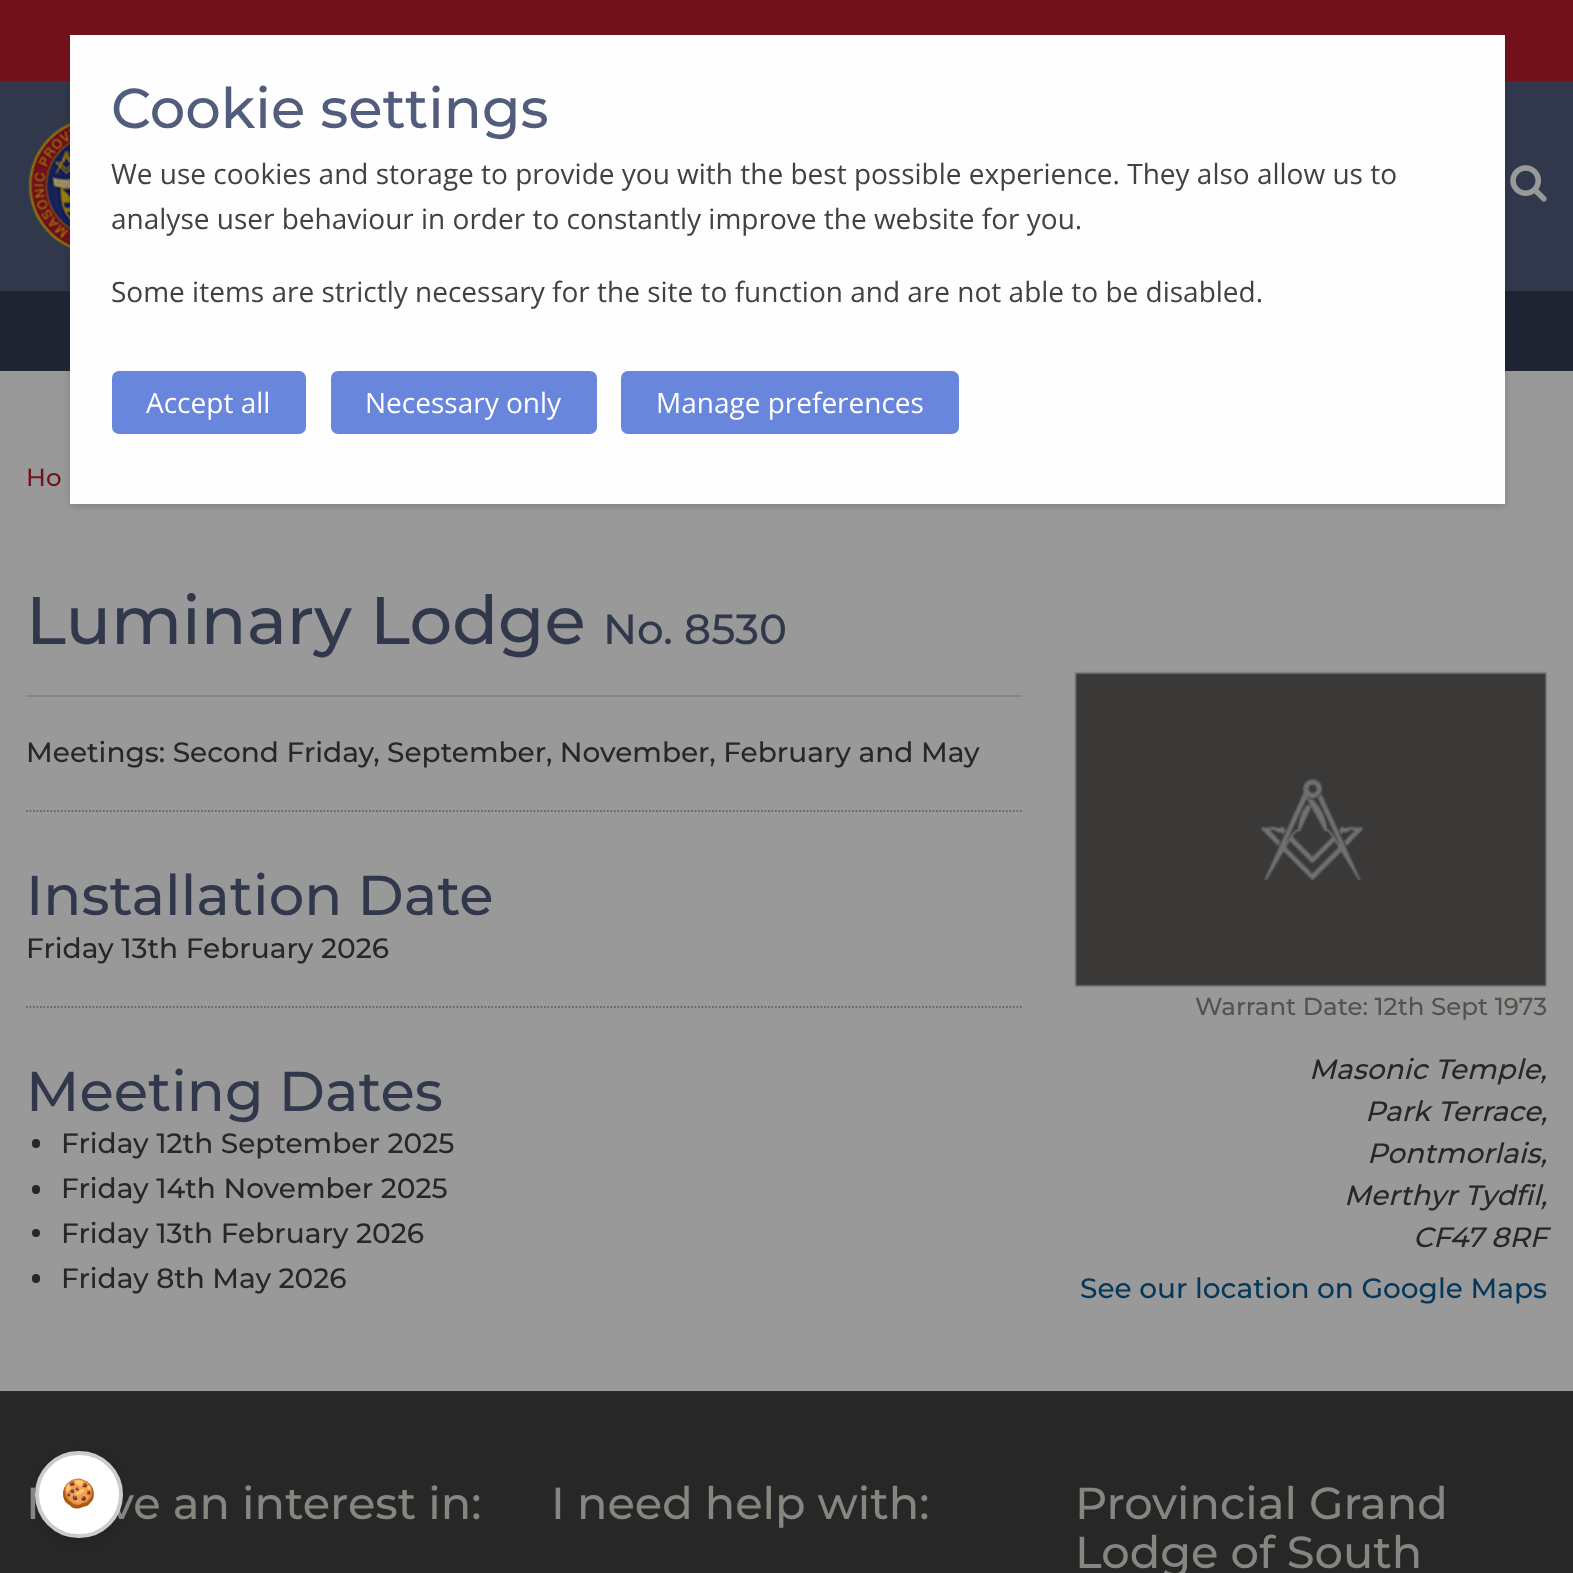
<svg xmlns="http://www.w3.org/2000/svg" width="1573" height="1573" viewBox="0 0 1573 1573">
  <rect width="100%" height="100%" fill="#999"/>
  <path d="M0 0h1573v81H0z" fill="#73121c"/>
  <path d="M0 81h1573v210H0z" fill="#32384c"/>
  <image x="28" y="122" width="42" height="127" href="img/1.png"/>
  <image x="1510" y="165" width="37" height="37" href="img/2.png"/>
  <path d="M0 291h1573v80H0z" fill="#202534"/>
  <path d="M70 37h1435v469H70z" fill="#00000029" filter="blur(3.5px)"/>
  <path d="M70 35h1435v469H70z" fill="#fefefe"/>
  <rect x="112" y="371" width="194" height="63" rx="7" fill="#6986dd"/>
  <rect x="331" y="371" width="266" height="63" rx="7" fill="#6986dd"/>
  <rect x="621" y="371" width="338" height="63" rx="7" fill="#6986dd"/>
  <path d="M26 695h996v2H26z" fill="#848689"/>
  <path d="M26 811H1022" fill="none" stroke="#696969" stroke-width="1.8" stroke-dasharray="1.75 1.75"/>
  <path d="M26 1007H1022" fill="none" stroke="#696969" stroke-width="1.8" stroke-dasharray="1.75 1.75"/>
  <rect x="32" y="1139" width="8" height="9" rx="4" fill="#272727"/>
  <rect x="32" y="1185" width="8" height="9" rx="4" fill="#272727"/>
  <circle cx="36" cy="1233" r="4" fill="#272727"/>
  <rect x="32" y="1274" width="8" height="9" rx="4" fill="#272727"/>
  <image x="1074" y="671" width="473" height="317" href="img/3.png"/>
  <path d="M0 1391h1573v182H0z" fill="#272727"/>
  <rect x="35" y="1454" width="88" height="88" rx="44" fill="#0000001a" filter="blur(3.5px)"/>
  <text x="111" y="128" font-family="Montserrat" font-size="56" font-weight="500" fill="#525d7d">Cookie settings</text>
  <g font-family="Open Sans" font-size="28" fill="#414141">
    <text x="111" y="184">We use cookies and storage to provide you with the best possible experience. They also allow us to</text>
    <text x="111" y="229">analyse user behaviour in order to constantly improve the website for you.</text>
    <text x="111" y="302">Some items are strictly necessary for the site to function and are not able to be disabled.</text>
  </g>
  <g font-family="Open Sans" font-size="28" fill="#fff">
    <text x="146" y="413">Accept all</text>
    <text x="365" y="413">Necessary only</text>
    <text x="656" y="413">Manage preferences</text>
  </g>
  <text x="26" y="486" font-family="Montserrat" font-size="24.5" font-weight="500" fill="#73121c">Ho</text>
  <text x="26" y="644" font-family="Montserrat" font-size="67.25" font-weight="500" fill="#31384b">Luminary Lodge</text>
  <text x="603" y="644" font-family="Montserrat" font-size="42" font-weight="500" fill="#31384b">No. 8530</text>
  <text x="26" y="762" font-family="Montserrat" font-size="28" font-weight="500" fill="#272727">Meetings: Second Friday, September, November, February and May</text>
  <text x="26" y="915" font-family="Montserrat" font-size="56" font-weight="500" fill="#31384b">Installation Date</text>
  <text x="26" y="958" font-family="Montserrat" font-size="28" font-weight="500" fill="#272727">Friday 13th February 2026</text>
  <text x="26" y="1111" font-family="Montserrat" font-size="56" font-weight="500" fill="#31384b">Meeting Dates</text>
  <g font-family="Montserrat" font-size="28" font-weight="500" fill="#272727">
    <text x="61" y="1153">Friday 12th September 2025</text>
    <text x="61" y="1198">Friday 14th November 2025</text>
    <text x="61" y="1243">Friday 13th February 2026</text>
    <text x="61" y="1288">Friday 8th May 2026</text>
  </g>
  <text x="1195" y="1015" font-family="Montserrat" font-size="24.5" font-weight="500" fill="#56524b">Warrant Date: 12th Sept 1973</text>
  <g font-family="Montserrat" font-size="28" font-weight="500" font-style="italic" fill="#272727">
    <text x="1309" y="1079">Masonic Temple,</text>
    <text x="1365" y="1121">Park Terrace,</text>
    <text x="1367" y="1163">Pontmorlais,</text>
    <text x="1344" y="1205">Merthyr Tydfil,</text>
    <text x="1413" y="1247">CF47 8RF</text>
  </g>
  <text x="1080" y="1298" font-family="Montserrat" font-size="28" font-weight="500" fill="#04385b">See our location on Google Maps</text>
  <g font-family="Montserrat" font-size="44.75" font-weight="500" fill="#87857f">
    <text x="26" y="1519">I</text>
    <text x="109" y="1519">ve an interest in:</text>
    <text x="551" y="1519">I need help with:</text>
    <text x="1075" y="1519">Provincial Grand</text>
    <text x="1075" y="1568">Lodge of South</text>
  </g>
  <rect x="37" y="1453" width="84" height="83" rx="41.5" fill="#fff" stroke="#ccc" stroke-width="4"/>
  <text x="61" y="1503" font-family="Noto Color Emoji" font-size="28" fill="#000">🍪</text>
</svg>
